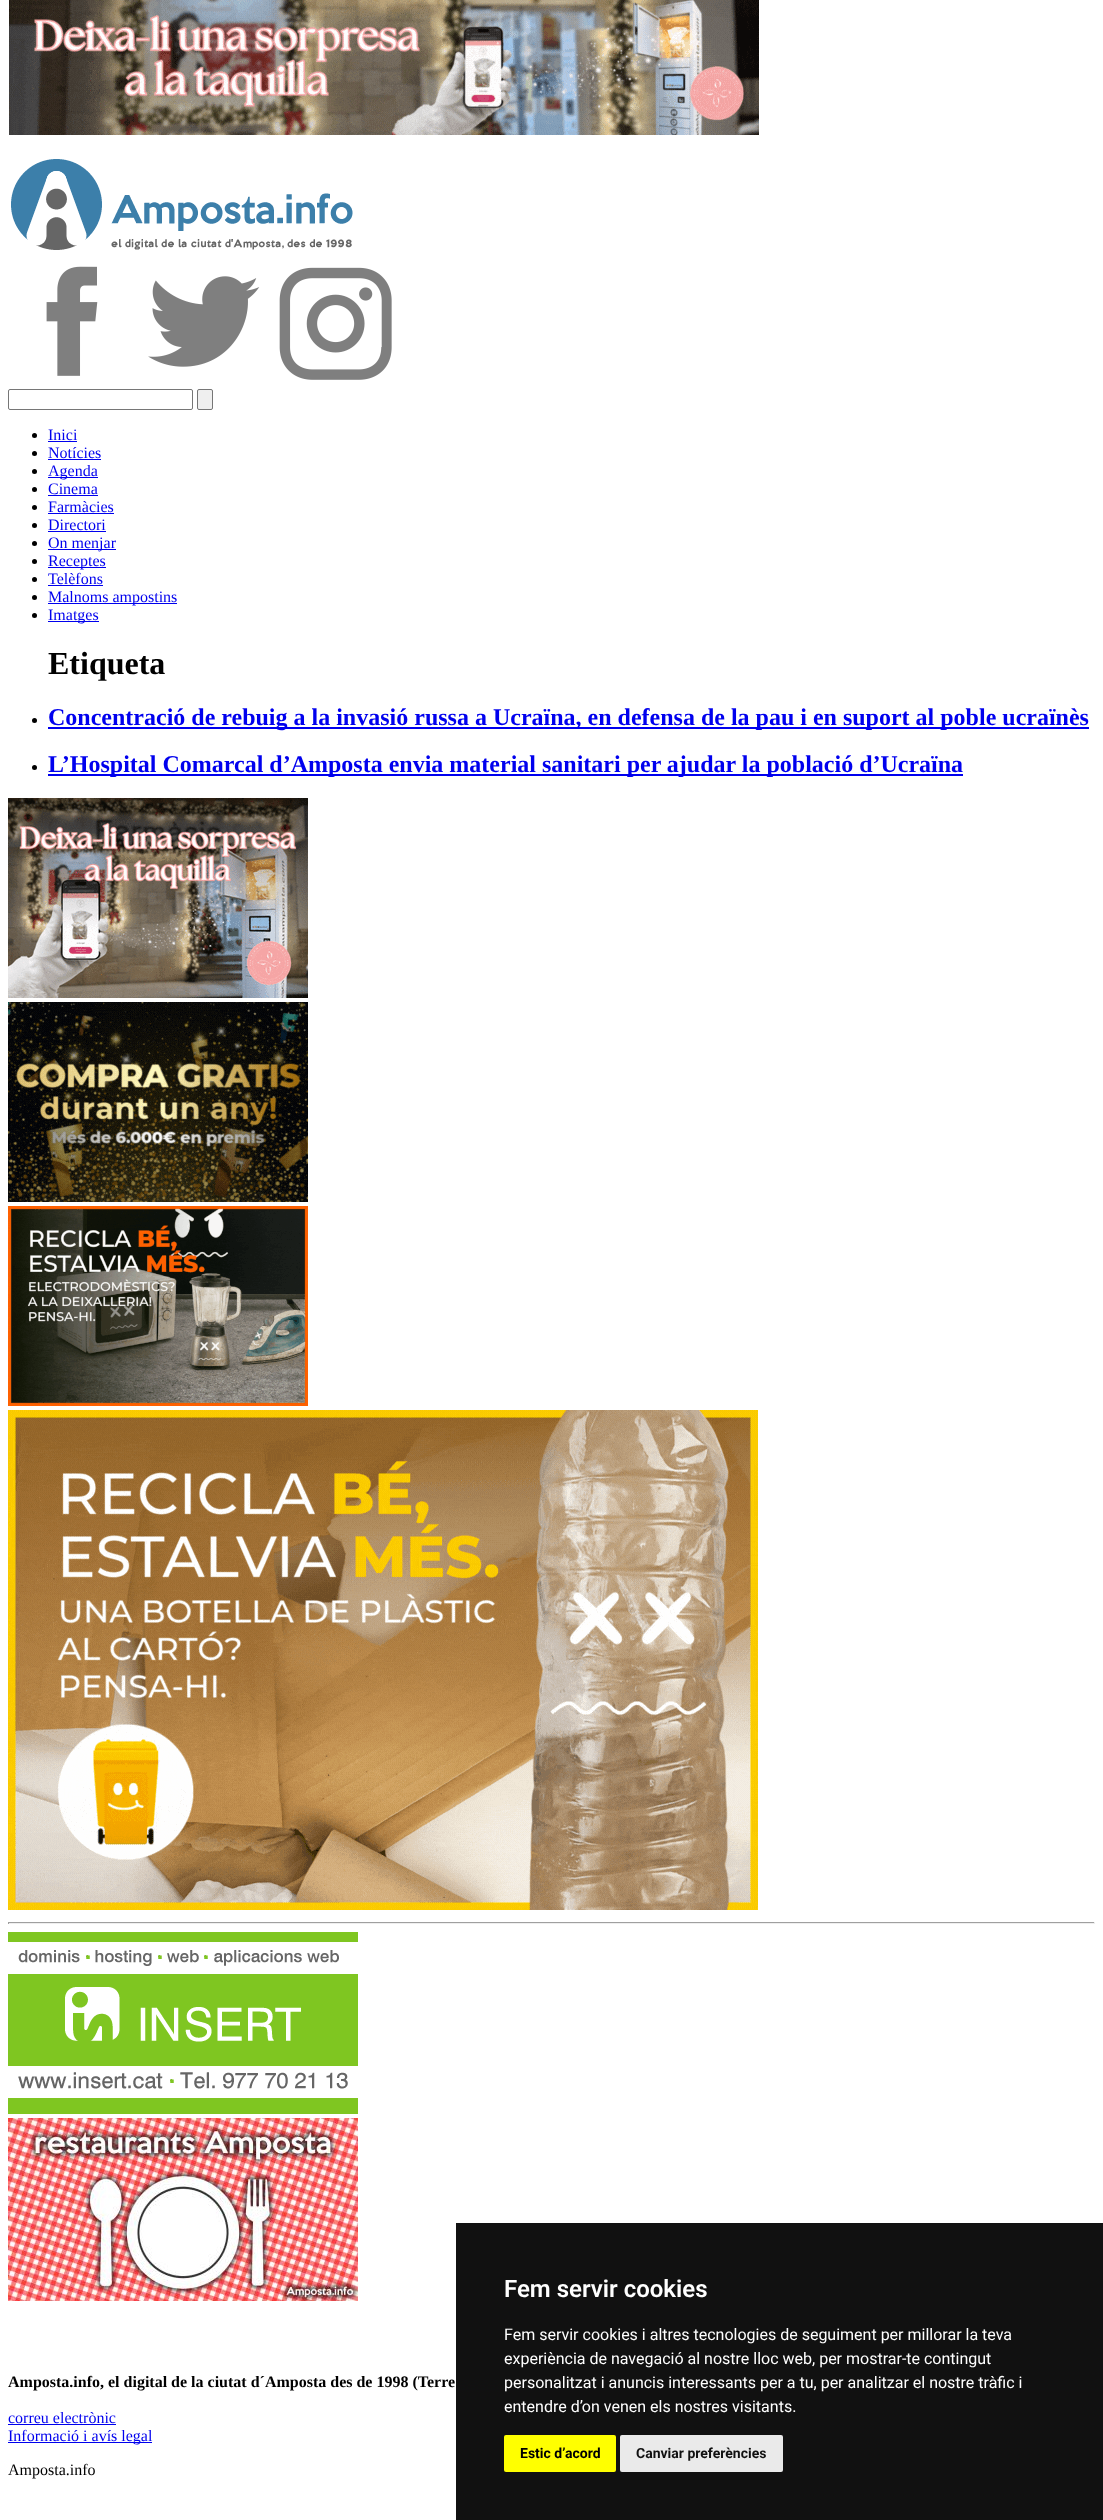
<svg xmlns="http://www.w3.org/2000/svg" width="1103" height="2520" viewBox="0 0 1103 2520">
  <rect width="100%" height="100%" fill="#fff"/>
  <image x="9" y="0" width="750" height="135" href="img/1.png"/>
  <image x="11" y="159" width="342" height="91" href="img/2.png"/>
  <image x="46" y="266" width="52" height="110" href="img/3.png"/>
  <image x="148" y="276" width="112" height="91" href="img/4.png"/>
  <image x="279" y="267" width="113" height="113" href="img/5.png"/>
  <rect x="8.5" y="389.5" width="184" height="20" rx="1.5" fill="none" stroke="#767676"/>
  <rect x="197.5" y="389.5" width="15" height="20" rx="1.5" fill="#efefef" stroke="#767676"/>
  <circle cx="34.5" cy="435.5" r="2.5" fill="#000"/>
  <path d="M48 441h29v1H48z" fill="#00e"/>
  <circle cx="34.5" cy="453.5" r="2.5" fill="#000"/>
  <path d="M48 459h53v1H48z" fill="#00e"/>
  <circle cx="34.5" cy="471.5" r="2.5" fill="#000"/>
  <path d="M48 477h50v1H48z" fill="#00e"/>
  <circle cx="34.5" cy="489.5" r="2.5" fill="#000"/>
  <path d="M48 495h50v1H48z" fill="#00e"/>
  <circle cx="34.5" cy="507.5" r="2.5" fill="#000"/>
  <path d="M48 513h66v1H48z" fill="#00e"/>
  <circle cx="34.5" cy="525.5" r="2.5" fill="#000"/>
  <path d="M48 531h58v1H48z" fill="#00e"/>
  <circle cx="34.5" cy="543.5" r="2.5" fill="#000"/>
  <path d="M48 549h68v1H48z" fill="#00e"/>
  <circle cx="34.5" cy="561.5" r="2.5" fill="#000"/>
  <path d="M48 567h58v1H48z" fill="#00e"/>
  <circle cx="34.5" cy="579.5" r="2.5" fill="#000"/>
  <path d="M48 585h55v1H48z" fill="#00e"/>
  <circle cx="34.5" cy="597.5" r="2.5" fill="#000"/>
  <path d="M48 603h129v1H48z" fill="#00e"/>
  <circle cx="34.5" cy="615.5" r="2.5" fill="#000"/>
  <path d="M48 621h51v1H48z" fill="#00e"/>
  <circle cx="34.5" cy="720.5" r="2.5" fill="#000"/>
  <path d="M48 727h1041v2H48z" fill="#00e"/>
  <circle cx="34.5" cy="767.5" r="2.5" fill="#000"/>
  <path d="M48 774h915v2H48z" fill="#00e"/>
  <image x="8" y="798" width="300" height="200" href="img/6.png"/>
  <image x="8" y="1002" width="300" height="200" href="img/7.png"/>
  <image x="8" y="1206" width="300" height="200" href="img/8.png"/>
  <image x="8" y="1410" width="750" height="500" href="img/9.png"/>
  <path d="M8 1922h1087v1H8z" fill="#9f9f9f"/>
  <path d="M1094 1922h1v2H1094z" fill="#eee"/>
  <path d="M8 1923h1087v1H8z" fill="#eee"/>
  <path d="M8 1922h1v2H8z" fill="#9f9f9f"/>
  <image x="8" y="1932" width="350" height="182" href="img/10.png"/>
  <image x="8" y="2118" width="350" height="183" href="img/11.png"/>
  <path d="M8 2424h108v1H8z" fill="#00e"/>
  <path d="M8 2442h144v1H8z" fill="#00e"/>
  <path d="M456 2223h647v297H456z" fill="#111"/>
  <rect x="504" y="2435" width="112" height="37" rx="2" fill="#ff0"/>
  <rect x="620" y="2435" width="163" height="37" rx="2" fill="#eaeaea"/>
  <g font-family="Liberation Serif" font-size="16" fill="#00e">
    <text x="48" y="440">Inici</text>
    <text x="48" y="458">Notícies</text>
    <text x="48" y="476">Agenda</text>
    <text x="48" y="494">Cinema</text>
    <text x="48" y="512">Farmàcies</text>
    <text x="48" y="530">Directori</text>
    <text x="48" y="548">On menjar</text>
    <text x="48" y="566">Receptes</text>
    <text x="48" y="584">Telèfons</text>
    <text x="48" y="602">Malnoms ampostins</text>
    <text x="48" y="620">Imatges</text>
  </g>
  <text x="48" y="674" font-family="Liberation Serif" font-size="32" font-weight="bold" fill="#000">Etiqueta</text>
  <g font-family="Liberation Serif" font-size="24" font-weight="bold" fill="#00e">
    <text x="48" y="725">Concentració de rebuig a la invasió russa a Ucraïna, en defensa de la pau i en suport al poble ucraïnès</text>
    <text x="48" y="772">L’Hospital Comarcal d’Amposta envia material sanitari per ajudar la població d’Ucraïna</text>
  </g>
  <text x="8" y="2387" font-family="Liberation Serif" font-size="16" font-weight="bold" fill="#000">Amposta.info, el digital de la ciutat d´Amposta des de 1998 (Terre</text>
  <g font-family="Liberation Serif" font-size="16" fill="#00e">
    <text x="8" y="2423">correu electrònic</text>
    <text x="8" y="2441">Informació i avís legal</text>
  </g>
  <text x="8" y="2475" font-family="Liberation Serif" font-size="16" fill="#000">Amposta.info</text>
  <text x="504" y="2297" font-family="Roboto" font-size="24" font-weight="600" fill="#fff">Fem servir cookies</text>
  <g font-family="Roboto" font-size="16" fill="#fff">
    <text x="504" y="2340">Fem servir cookies i altres tecnologies de seguiment per millorar la teva</text>
    <text x="504" y="2364">experiència de navegació al nostre lloc web, per mostrar-te contingut</text>
    <text x="504" y="2388">personalitzat i anuncis interessants per a tu, per analitzar el nostre tràfic i</text>
    <text x="504" y="2412">entendre d’on venen els nostres visitants.</text>
  </g>
  <text x="520" y="2458" font-family="Roboto" font-size="14" font-weight="bold" fill="#000">Estic d’acord</text>
  <text x="636" y="2458" font-family="Roboto" font-size="14" font-weight="bold" fill="#111">Canviar preferències</text>
</svg>
